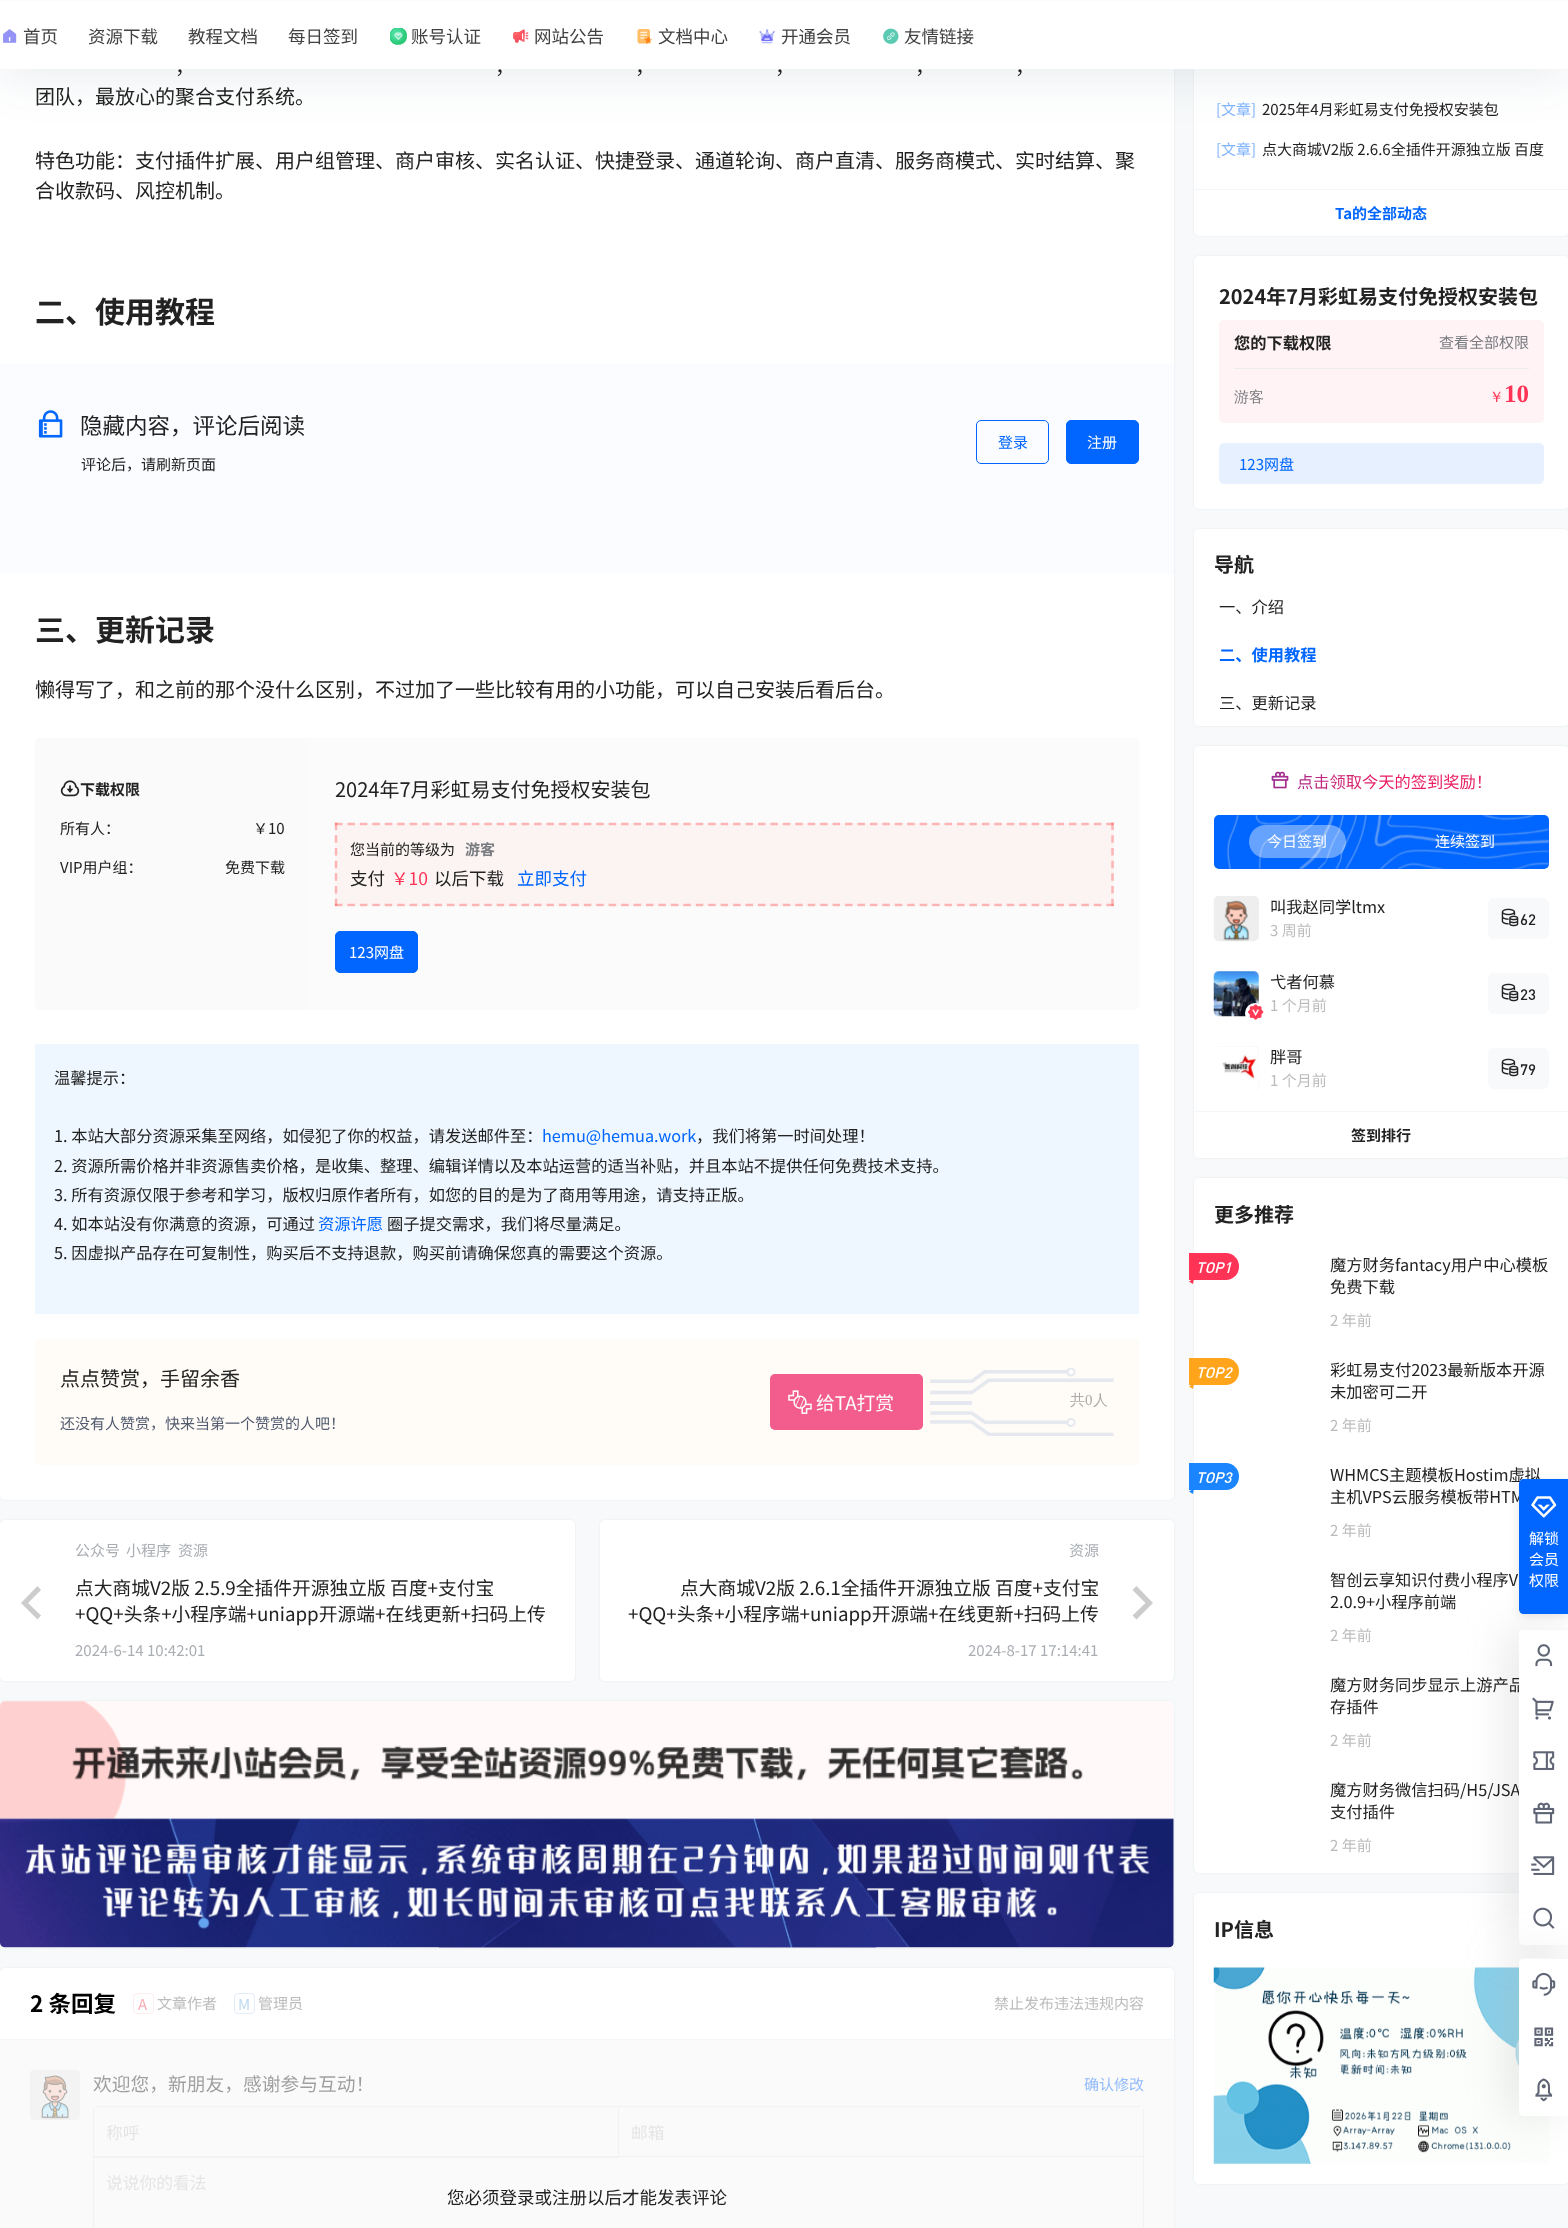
<svg xmlns="http://www.w3.org/2000/svg" width="1568" height="2228" viewBox="0 0 1568 2228">
  <defs>
    <clipPath id="clip1"><rect x="93" y="2106" width="1051" height="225" rx="5"/></clipPath>
    <linearGradient id="g1" gradientUnits="userSpaceOnUse" x1="1194" y1="771" x2="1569" y2="771"><stop offset="0" stop-color="#673ab7"/><stop offset="0.5" stop-color="#e91e63"/></linearGradient>
  </defs>
  <rect width="100%" height="100%" fill="#f7f9fa"/>
  <rect y="-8" width="1174" height="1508" rx="5" fill="#627c991a" filter="blur(1px)"/>
  <rect y="-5" width="1174" height="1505" rx="5" fill="#fff"/>
  <rect x="1194" y="-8" width="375" height="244" rx="5" fill="#627c991a" filter="blur(1px)"/>
  <rect x="1194" y="-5" width="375" height="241" rx="5" fill="#fff"/>
  <path d="M0 -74h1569v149H0z" fill="#113a5d1a" filter="blur(25px)"/>
  <path d="M0 1h1568v68H0z" fill="#fff"/>
  <path d="M0 0h1568v1H0z" fill="#fcfcfc"/>
  <image x="3" y="29" width="14" height="14" href="img/1.png"/>
  <image x="390" y="28" width="17" height="17" href="img/2.png"/>
  <image x="513" y="29" width="16" height="14" href="img/3.png"/>
  <image x="637" y="29" width="15" height="15" href="img/4.png"/>
  <image x="759" y="29" width="16" height="15" href="img/5.png"/>
  <image x="883" y="28" width="16" height="16" href="img/6.png"/>
  <path d="M0 364h1174v210H0z" fill="#fafcff"/>
  <image x="38" y="410" width="25" height="28" href="img/7.png"/>
  <rect x="976.5" y="420.5" width="72" height="43" rx="4.5" fill="none" stroke="#06f"/>
  <rect x="1066.5" y="420.5" width="72" height="43" rx="4.5" fill="#06f" stroke="#06f"/>
  <path d="M40 738H310V1010H40C37 1010 35 1008 35 1005V743C35 740 37 738 40 738Z" fill="#fafafa"/>
  <image x="60" y="780" width="20" height="17" href="img/8.png"/>
  <path d="M310 738H1134C1137 738 1139 740 1139 743V1005C1139 1008 1137 1010 1134 1010H310Z" fill="#fbfbfb"/>
  <path d="M335 823h779v83H335z" fill="#fbf4f3"/>
  <path d="M335 824H1114" fill="none" stroke="#fcb5b4" stroke-width="2.5" stroke-dasharray="7.5 4.94"/>
  <path d="M1112.5 822.5V906" fill="none" stroke="#ff000042" stroke-width="2.5" stroke-dasharray="7.5 5.21"/>
  <path d="M335 905H1114" fill="none" stroke="#ff000042" stroke-width="2.5" stroke-dasharray="7.5 4.94"/>
  <path d="M336 822.5V906" fill="none" stroke="#ff000042" stroke-width="2.5" stroke-dasharray="7.5 5.21"/>
  <rect x="335.5" y="931.5" width="82" height="41" rx="4.5" fill="#06f" stroke="#06f"/>
  <path d="M35 1044h1104v270H35z" fill="#eef7ff"/>
  <rect x="35" y="1339" width="1104" height="126" rx="4" fill="#fffcf7"/>
  <rect x="770" y="1374" width="153" height="56" rx="5" fill="#f25d8e"/>
  <image x="788" y="1390" width="24" height="24" href="img/9.png"/>
  <image x="930" y="1368" width="184" height="68" href="img/10.png"/>
  <rect y="1520" width="575" height="161" rx="5" fill="#627c991a" filter="blur(1px)"/>
  <rect y="1520" width="575" height="161" rx="5" fill="#fff"/>
  <path d="M28 1603L41 1615.5L37.5 1619.5L21 1603L37.5 1586L41 1590Z" fill="#ccc"/>
  <rect x="600" y="1520" width="574" height="161" rx="5" fill="#627c991a" filter="blur(1px)"/>
  <rect x="600" y="1520" width="574" height="161" rx="5" fill="#fff"/>
  <path d="M1145.5 1603L1132.5 1590L1136.5 1586L1153 1603L1136.5 1619.5L1132.5 1615.5Z" fill="#ccc"/>
  <rect y="1701" width="1174" height="247" rx="5" fill="#627c991a" filter="blur(1px)"/>
  <rect y="1701" width="1174" height="247" rx="5" fill="#fff"/>
  <image x="0" y="1701" width="1174" height="118" href="img/11.png"/>
  <image x="0" y="1818" width="1174" height="130" href="img/12.png"/>
  <rect y="1968" width="1174" height="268" rx="5" fill="#627c991a" filter="blur(1px)"/>
  <rect y="1968" width="1174" height="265" rx="5" fill="#fff"/>
  <path d="M0 2039h1174v1H0z" fill="#f5f6f7"/>
  <rect x="133.5" y="1993.5" width="20" height="20" rx="3.5" fill="none" stroke="#feedee"/>
  <rect x="234.5" y="1993.5" width="20" height="20" rx="3.5" fill="none" stroke="#e2edf9"/>
  <image x="30" y="2070" width="50" height="50" href="img/13.png"/>
  <path d="M98 2106L95 2107H618V2157H94V2108C93 2109 93 2110 93 2111V2158H619V2106Z" fill="#ebebeb"/>
  <g clip-path="url(#clip1)">
    <path d="M619 2106h525v1H619z" fill="#ebebeb"/>
    <path d="M1143 2106h1v52H1143z" fill="#ebebeb"/>
  </g>
  <path d="M94 2157H1143V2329C1144 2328 1144 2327 1144 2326V2156H93V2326C93 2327 93 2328 94 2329ZM1139 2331L1142 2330H95L98 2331Z" fill="#ebebeb" fill-rule="evenodd"/>
  <path d="M1194 189h374v1H1194z" fill="#f5f6f7"/>
  <rect x="1194" y="256" width="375" height="253" rx="5" fill="#627c991a" filter="blur(1px)"/>
  <rect x="1194" y="256" width="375" height="253" rx="5" fill="#fff"/>
  <rect x="1219" y="320" width="325" height="103" rx="5" fill="#fff3f5"/>
  <path d="M1234 368h295v1H1234z" fill="#ececec"/>
  <rect x="1219" y="443" width="325" height="41" rx="5" fill="#e6f0ff"/>
  <rect x="1194" y="529" width="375" height="197" rx="5" fill="#627c991a" filter="blur(1px)"/>
  <rect x="1194" y="529" width="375" height="197" rx="5" fill="#fff"/>
  <rect x="1194" y="746" width="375" height="412" rx="5" fill="#627c991a" filter="blur(1px)"/>
  <rect x="1194" y="746" width="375" height="412" rx="5" fill="#fff"/>
  <image x="1271" y="771" width="18" height="18" href="img/14.png"/>
  <rect x="1214" y="815" width="335" height="54" rx="5" fill="#06f"/>
  <image x="1226" y="815" width="323" height="54" href="img/15.png"/>
  <rect x="1249" y="825" width="97" height="33" rx="16.5" fill="#ffffff66"/>
  <rect x="1214" y="896" width="45" height="45" rx="5" fill="#eee"/>
  <image x="1213" y="896" width="41" height="46" href="img/16.png"/>
  <rect x="1488" y="898" width="61" height="41" rx="6" fill="#f7f9fa"/>
  <image x="1501" y="908" width="18" height="19" href="img/17.png"/>
  <rect x="1214" y="971" width="45" height="45" rx="5" fill="#eee"/>
  <image x="1213" y="971" width="46" height="46" href="img/18.png"/>
  <circle cx="1255" cy="1013" r="10" fill="#fff"/>
  <image x="1248" y="1004" width="16" height="16" href="img/19.png"/>
  <rect x="1488" y="973" width="61" height="41" rx="6" fill="#f7f9fa"/>
  <image x="1501" y="983" width="18" height="19" href="img/17.png"/>
  <rect x="1214" y="1046" width="45" height="45" rx="5" fill="#eee"/>
  <image x="1214" y="1046" width="45" height="45" href="img/20.png"/>
  <rect x="1488" y="1048" width="61" height="41" rx="6" fill="#f7f9fa"/>
  <image x="1501" y="1058" width="18" height="19" href="img/17.png"/>
  <path d="M1194 1111h374v1H1194z" fill="#f5f6f7"/>
  <rect x="1194" y="1178" width="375" height="695" rx="5" fill="#627c991a" filter="blur(1px)"/>
  <rect x="1194" y="1178" width="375" height="695" rx="5" fill="#fff"/>
  <path d="M1189 1253H1226C1233 1253 1239 1259 1239 1266V1267C1239 1274 1233 1280 1226 1280H1189Z" fill="#f35"/>
  <path d="M1193 1284L1189 1281.5L1194 1278.5Z" fill="#f35"/>
  <path d="M1189 1358H1226C1233 1358 1239 1364 1239 1371V1372C1239 1379 1233 1385 1226 1385H1189Z" fill="#ffa41b"/>
  <path d="M1193 1389L1189 1386.5L1194 1383.5Z" fill="#ffa41b"/>
  <path d="M1189 1463H1226C1233 1463 1239 1469 1239 1476V1477C1239 1484 1233 1490 1226 1490H1189Z" fill="#1a85ff"/>
  <path d="M1193 1494L1189 1491.5L1194 1488.5Z" fill="#1a85ff"/>
  <rect x="1194" y="1893" width="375" height="291" rx="5" fill="#627c991a" filter="blur(1px)"/>
  <rect x="1194" y="1893" width="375" height="291" rx="5" fill="#fff"/>
  <image x="1213" y="1967" width="336" height="197" href="img/21.png"/>
  <rect x="1509" y="1629" width="50" height="316" rx="5" fill="#b5b5b552" filter="blur(22px)"/>
  <g font-family="Noto Sans CJK SC" font-size="17.5" fill="#414141">
    <text x="23" y="43">首页</text>
    <text x="88" y="43">资源下载</text>
    <text x="188" y="43">教程文档</text>
    <text x="288" y="43">每日签到</text>
    <text x="411" y="43">账号认证</text>
    <text x="534" y="43">网站公告</text>
    <text x="658" y="43">文档中心</text>
    <text x="781" y="43">开通会员</text>
    <text x="904" y="43">友情链接</text>
  </g>
  <g font-family="Noto Sans CJK SC" font-size="20" fill="#222">
    <text x="175" y="74">，</text>
    <text x="495" y="74">，</text>
    <text x="635" y="74">，</text>
    <text x="775" y="74">，</text>
    <text x="915" y="74">，</text>
    <text x="1015" y="74">，</text>
    <text x="35" y="104">团队，最放心的聚合支付系统。</text>
    <text x="35" y="168">特色功能：支付插件扩展、用户组管理、商户审核、实名认证、快捷登录、通道轮询、商户直清、服务商模式、实时结算、聚</text>
    <text x="35" y="198">合收款码、风控机制。</text>
  </g>
  <text x="35" y="323" font-family="Noto Sans CJK SC" font-size="30" font-weight="bold" fill="#222">二、使用教程</text>
  <text x="80" y="434" font-family="Noto Sans CJK SC" font-size="22.5" fill="#222">隐藏内容，评论后阅读</text>
  <text x="81" y="470" font-family="Noto Sans CJK SC" font-size="15" fill="#222">评论后，请刷新页面</text>
  <text x="998" y="448" font-family="Noto Sans CJK SC" font-size="15" fill="#06f">登录</text>
  <text x="1087" y="448" font-family="Noto Sans CJK SC" font-size="15" fill="#fff">注册</text>
  <text x="35" y="641" font-family="Noto Sans CJK SC" font-size="30" font-weight="bold" fill="#222">三、更新记录</text>
  <text x="35" y="697" font-family="Noto Sans CJK SC" font-size="20" fill="#222">懒得写了，和之前的那个没什么区别，不过加了一些比较有用的小功能，可以自己安装后看后台。</text>
  <text x="80" y="795" font-family="Noto Sans CJK SC" font-size="15" font-weight="bold" fill="#222">下载权限</text>
  <g font-family="Noto Sans CJK SC" font-size="15" fill="#222">
    <text x="60" y="834">所有人：</text>
    <text x="253" y="834">￥10</text>
    <text x="60" y="873">VIP用户组：</text>
    <text x="225" y="873">免费下载</text>
  </g>
  <text x="335" y="797" font-family="Noto Sans CJK SC" font-size="20" fill="#222">2024年7月彩虹易支付免授权安装包</text>
  <text x="350" y="855" font-family="Noto Sans CJK SC" font-size="15" fill="#222">您当前的等级为</text>
  <text x="465" y="855" font-family="Noto Sans CJK SC" font-size="15" font-weight="bold" fill="#797c80">游客</text>
  <text x="350" y="885" font-family="Noto Sans CJK SC" font-size="17.5" fill="#222">支付</text>
  <text x="391" y="885" font-family="Noto Sans CJK SC" font-size="17.5" fill="#f35">￥10</text>
  <text x="434" y="885" font-family="Noto Sans CJK SC" font-size="17.5" fill="#222">以后下载</text>
  <text x="517" y="885" font-family="Noto Sans CJK SC" font-size="17.5" fill="#06f">立即支付</text>
  <text x="349" y="958" font-family="Noto Sans CJK SC" font-size="15" fill="#fff">123网盘</text>
  <g font-family="Noto Sans CJK SC" font-size="16.25" fill="#222">
    <text x="54" y="1084">温馨提示：</text>
    <text x="54" y="1142">1. 本站大部分资源采集至网络，如侵犯了你的权益，请发送邮件至：</text>
  </g>
  <text x="542" y="1142" font-family="Noto Sans CJK SC" font-size="16.25" fill="#06f">hemu@hemua.work</text>
  <g font-family="Noto Sans CJK SC" font-size="16.25" fill="#222">
    <text x="696" y="1142">，我们将第一时间处理！</text>
    <text x="54" y="1172">2. 资源所需价格并非资源售卖价格，是收集、整理、编辑详情以及本站运营的适当补贴，并且本站不提供任何免费技术支持。</text>
    <text x="54" y="1201">3. 所有资源仅限于参考和学习，版权归原作者所有，如您的目的是为了商用等用途，请支持正版。</text>
    <text x="54" y="1230">4. 如本站没有你满意的资源，可通过</text>
  </g>
  <text x="318" y="1230" font-family="Noto Sans CJK SC" font-size="16.25" fill="#06f">资源许愿</text>
  <g font-family="Noto Sans CJK SC" font-size="16.25" fill="#222">
    <text x="387" y="1230">圈子提交需求，我们将尽量满足。</text>
    <text x="54" y="1259">5. 因虚拟产品存在可复制性，购买后不支持退款，购买前请确保您真的需要这个资源。</text>
  </g>
  <text x="60" y="1386" font-family="Noto Sans CJK SC" font-size="20" fill="#222">点点赞赏，手留余香</text>
  <text x="816" y="1410" font-family="Noto Sans CJK SC" font-size="18.75" fill="#fff">给TA打赏</text>
  <text x="1070" y="1405" font-family="WenQuanYi Zen Hei" font-size="15" font-weight="500" fill="#aaa">共</text>
  <text x="1085" y="1405" font-family="Liberation Serif" font-size="15" fill="#aaa">0</text>
  <text x="1093" y="1405" font-family="WenQuanYi Zen Hei" font-size="15" font-weight="500" fill="#aaa">人</text>
  <text x="60" y="1429" font-family="Noto Sans CJK SC" font-size="15" fill="#515a6e">还没有人赞赏，快来当第一个赞赏的人吧！</text>
  <g font-family="Noto Sans CJK SC" font-size="15" fill="#aaaeb3">
    <text x="75" y="1556">公众号</text>
    <text x="126" y="1556">小程序</text>
    <text x="178" y="1556">资源</text>
  </g>
  <g font-family="Noto Sans CJK SC" font-size="18.75" fill="#222">
    <text x="75" y="1595">点大商城V2版 2.5.9全插件开源独立版 百度+支付宝</text>
    <text x="75" y="1621">+QQ+头条+小程序端+uniapp开源端+在线更新+扫码上传</text>
  </g>
  <g font-family="Noto Sans CJK SC" font-size="15" fill="#aaaeb3">
    <text x="75" y="1656">2024-6-14 10:42:01</text>
    <text x="1069" y="1556">资源</text>
  </g>
  <g font-family="Noto Sans CJK SC" font-size="18.75" fill="#222">
    <text x="680" y="1595">点大商城V2版 2.6.1全插件开源独立版 百度+支付宝</text>
    <text x="628" y="1621">+QQ+头条+小程序端+uniapp开源端+在线更新+扫码上传</text>
  </g>
  <text x="968" y="1656" font-family="Noto Sans CJK SC" font-size="15" fill="#aaaeb3">2024-8-17 17:14:41</text>
  <text x="30" y="2012" font-family="Noto Sans CJK SC" font-size="22.5" font-weight="bold" fill="#000">2 条回复</text>
  <text x="138" y="2010" font-family="Noto Sans CJK SC" font-size="15" fill="#faadb4">A</text>
  <text x="157" y="2009" font-family="Noto Sans CJK SC" font-size="15" fill="#bcbcbc">文章作者</text>
  <text x="238" y="2010" font-family="Noto Sans CJK SC" font-size="15" fill="#c0d9f1">M</text>
  <g font-family="Noto Sans CJK SC" font-size="15" fill="#bcbcbc">
    <text x="258" y="2009">管理员</text>
    <text x="994" y="2009">禁止发布违法违规内容</text>
  </g>
  <text x="93" y="2091" font-family="Noto Sans CJK SC" font-size="18.75" fill="#222">欢迎您，新朋友，感谢参与互动！</text>
  <text x="1084" y="2090" font-family="Noto Sans CJK SC" font-size="15" fill="#06f">确认修改</text>
  <g font-family="Noto Sans CJK SC" font-size="16.75" fill="#ccc">
    <text x="106" y="2139">称呼</text>
    <text x="631" y="2139">邮箱</text>
    <text x="106" y="2189">说说你的看法</text>
  </g>
  <path d="M0 2040h1174v188H0z" fill="#f7f7f796"/>
  <text x="447" y="2204" font-family="Noto Sans CJK SC" font-size="17.5" fill="#222">您必须登录或注册以后才能发表评论</text>
  <text x="1216" y="115" font-family="Noto Sans CJK SC" font-size="15" fill="#80b3ff">[文章]</text>
  <text x="1262" y="115" font-family="Noto Sans CJK SC" font-size="15" fill="#222">2025年4月彩虹易支付免授权安装包</text>
  <text x="1216" y="155" font-family="Noto Sans CJK SC" font-size="15" fill="#80b3ff">[文章]</text>
  <text x="1262" y="155" font-family="Noto Sans CJK SC" font-size="15" fill="#222">点大商城V2版 2.6.6全插件开源独立版 百度</text>
  <text x="1335" y="219" font-family="Noto Sans CJK SC" font-size="15" font-weight="bold" fill="#06f">Ta的全部动态</text>
  <text x="1219" y="304" font-family="Noto Sans CJK SC" font-size="20" font-weight="bold" fill="#222">2024年7月彩虹易支付免授权安装包</text>
  <text x="1234" y="349" font-family="Noto Sans CJK SC" font-size="16.25" font-weight="bold" fill="#222">您的下载权限</text>
  <text x="1439" y="348" font-family="Noto Sans CJK SC" font-size="15" fill="#797c80">查看全部权限</text>
  <text x="1234" y="402" font-family="WenQuanYi Zen Hei" font-size="15" font-weight="500" fill="#797c80">游客</text>
  <text x="1489" y="402" font-family="WenQuanYi Zen Hei" font-size="15" font-weight="500" fill="#f35">￥</text>
  <text x="1504" y="402" font-family="Liberation Serif" font-size="25" font-weight="bold" fill="#f35">10</text>
  <text x="1239" y="470" font-family="Noto Sans CJK SC" font-size="15" fill="#06f">123网盘</text>
  <text x="1214" y="572" font-family="Noto Sans CJK SC" font-size="20" font-weight="bold" fill="#222">导航</text>
  <text x="1219" y="613" font-family="Noto Sans CJK SC" font-size="16.25" fill="#222">一、介绍</text>
  <text x="1219" y="661" font-family="Noto Sans CJK SC" font-size="16.25" font-weight="bold" fill="#06f">二、使用教程</text>
  <text x="1219" y="709" font-family="Noto Sans CJK SC" font-size="16.25" fill="#222">三、更新记录</text>
  <text x="1297" y="788" font-family="Noto Sans CJK SC" font-size="16.25" fill="url(#g1)">点击领取今天的签到奖励！</text>
  <g font-family="Noto Sans CJK SC" font-size="15" fill="#fff">
    <text x="1267" y="847">今日签到</text>
    <text x="1435" y="847">连续签到</text>
  </g>
  <text x="1270" y="913" font-family="Noto Sans CJK SC" font-size="16.25" fill="#222">叫我赵同学ltmx</text>
  <text x="1270" y="936" font-family="Noto Sans CJK SC" font-size="15" fill="#bcbcbc">3 周前</text>
  <text x="1520" y="925" font-family="DIN" font-size="15" font-weight="500" fill="#222">62</text>
  <text x="1270" y="988" font-family="Noto Sans CJK SC" font-size="16.25" fill="#222">弋者何慕</text>
  <text x="1270" y="1011" font-family="Noto Sans CJK SC" font-size="15" fill="#bcbcbc">1 个月前</text>
  <text x="1520" y="1000" font-family="DIN" font-size="15" font-weight="500" fill="#222">23</text>
  <text x="1270" y="1063" font-family="Noto Sans CJK SC" font-size="16.25" fill="#222">胖哥</text>
  <text x="1270" y="1086" font-family="Noto Sans CJK SC" font-size="15" fill="#bcbcbc">1 个月前</text>
  <text x="1520" y="1075" font-family="DIN" font-size="15" font-weight="500" fill="#222">79</text>
  <text x="1351" y="1141" font-family="Noto Sans CJK SC" font-size="15" font-weight="bold" fill="#222">签到排行</text>
  <text x="1214" y="1222" font-family="Noto Sans CJK SC" font-size="20" font-weight="bold" fill="#222">更多推荐</text>
  <text x="1196" y="1273" font-family="DIN" font-size="15" font-weight="500" font-style="italic" fill="#fff">TOP1</text>
  <g font-family="Noto Sans CJK SC" font-size="16.25" fill="#222">
    <text x="1330" y="1271">魔方财务fantacy用户中心模板</text>
    <text x="1330" y="1293">免费下载</text>
  </g>
  <text x="1330" y="1326" font-family="Noto Sans CJK SC" font-size="15" fill="#bcbcbc">2 年前</text>
  <text x="1196" y="1378" font-family="DIN" font-size="15" font-weight="500" font-style="italic" fill="#fff">TOP2</text>
  <g font-family="Noto Sans CJK SC" font-size="16.25" fill="#222">
    <text x="1330" y="1376">彩虹易支付2023最新版本开源</text>
    <text x="1330" y="1398">未加密可二开</text>
  </g>
  <text x="1330" y="1431" font-family="Noto Sans CJK SC" font-size="15" fill="#bcbcbc">2 年前</text>
  <text x="1196" y="1483" font-family="DIN" font-size="15" font-weight="500" font-style="italic" fill="#fff">TOP3</text>
  <g font-family="Noto Sans CJK SC" font-size="16.25" fill="#222">
    <text x="1330" y="1481">WHMCS主题模板Hostim虚拟</text>
    <text x="1330" y="1503">主机VPS云服务模板带HTM</text>
  </g>
  <text x="1330" y="1536" font-family="Noto Sans CJK SC" font-size="15" fill="#bcbcbc">2 年前</text>
  <g font-family="Noto Sans CJK SC" font-size="16.25" fill="#222">
    <text x="1330" y="1586">智创云享知识付费小程序V</text>
    <text x="1330" y="1608">2.0.9+小程序前端</text>
  </g>
  <text x="1330" y="1641" font-family="Noto Sans CJK SC" font-size="15" fill="#bcbcbc">2 年前</text>
  <g font-family="Noto Sans CJK SC" font-size="16.25" fill="#222">
    <text x="1330" y="1691">魔方财务同步显示上游产品</text>
    <text x="1330" y="1713">存插件</text>
  </g>
  <text x="1330" y="1746" font-family="Noto Sans CJK SC" font-size="15" fill="#bcbcbc">2 年前</text>
  <g font-family="Noto Sans CJK SC" font-size="16.25" fill="#222">
    <text x="1330" y="1796">魔方财务微信扫码/H5/JSA</text>
    <text x="1330" y="1818">支付插件</text>
  </g>
  <text x="1330" y="1851" font-family="Noto Sans CJK SC" font-size="15" fill="#bcbcbc">2 年前</text>
  <text x="1214" y="1937" font-family="Noto Sans CJK SC" font-size="20" font-weight="bold" fill="#222">IP信息</text>
  <path d="M1524 1629H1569V1945H1524C1521 1945 1519 1943 1519 1940V1634C1519 1631 1521 1629 1524 1629Z" fill="#fff"/>
  <path d="M1521 1629h47v1H1521z" fill="#f5f6f7"/>
  <rect x="1519" y="1481" width="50" height="135" rx="5" fill="#0000001a" filter="blur(5px)"/>
  <path d="M1524 1479H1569V1614H1524C1521 1614 1519 1612 1519 1609V1484C1519 1481 1521 1479 1524 1479Z" fill="#06f"/>
  <g font-family="Noto Sans CJK SC" font-size="15" fill="#fff">
    <text x="1529" y="1586">权限</text>
    <text x="1529" y="1565">会员</text>
    <text x="1529" y="1544">解锁</text>
  </g>
  <image x="1531" y="1496" width="26" height="22" href="img/22.png"/>
  <image x="1535" y="1644" width="18" height="23" href="img/23.png"/>
  <image x="1532" y="1697" width="22" height="23" href="img/24.png"/>
  <image x="1533" y="1751" width="22" height="19" href="img/25.png"/>
  <image x="1533" y="1802" width="22" height="22" href="img/26.png"/>
  <image x="1531" y="1856" width="24" height="19" href="img/27.png"/>
  <image x="1533" y="1907" width="22" height="22" href="img/28.png"/>
  <rect x="1509" y="1958" width="50" height="158" rx="5" fill="#b5b5b552" filter="blur(22px)"/>
  <path d="M1524 1958H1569V2116H1524C1521 2116 1519 2114 1519 2111V1963C1519 1960 1521 1958 1524 1958Z" fill="#fff"/>
  <path d="M1521 1958h47v1H1521z" fill="#f5f6f7"/>
  <image x="1532" y="1972" width="24" height="24" href="img/29.png"/>
  <image x="1534" y="2027" width="20" height="20" href="img/30.png"/>
  <image x="1535" y="2078" width="18" height="24" href="img/31.png"/>
</svg>
